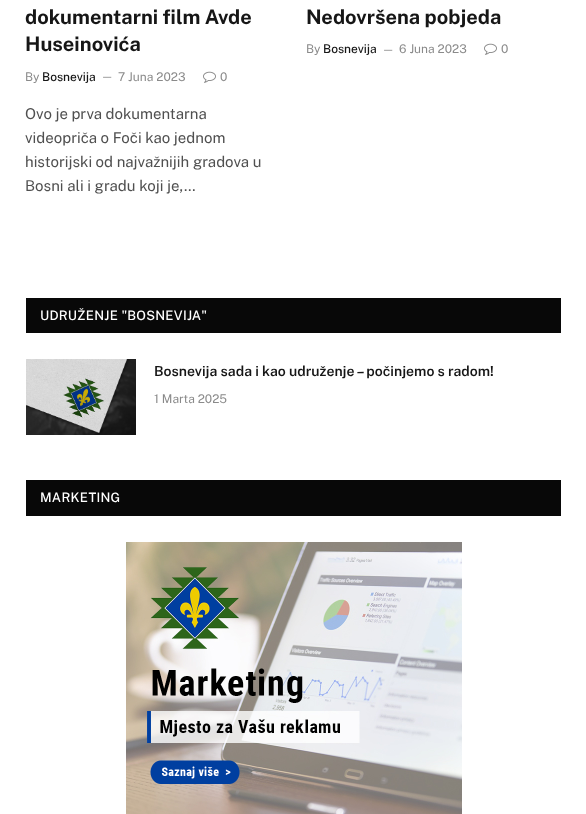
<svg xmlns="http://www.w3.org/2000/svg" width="586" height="814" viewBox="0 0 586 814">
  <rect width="100%" height="100%" fill="#fff"/>
  <image x="203" y="71" width="13" height="12" href="img/1.png"/>
  <image x="484" y="43" width="13" height="12" href="img/1.png"/>
  <path d="M26 298h535v35H26z" fill="#080808"/>
  <image x="26" y="359" width="110" height="76" href="img/2.png"/>
  <path d="M26 480h535v36H26z" fill="#080808"/>
  <image x="126" y="542" width="336" height="272" href="img/3.png"/>
  <g font-family="Public Sans" font-size="20" font-weight="bold" fill="#161616">
    <text x="25" y="24">dokumentarni film Avde</text>
    <text x="25" y="51">Huseinovića</text>
  </g>
  <text x="25" y="81" font-family="Public Sans" font-size="12" fill="#8a8a8a">By</text>
  <text x="42" y="81" font-family="Public Sans" font-size="12" font-weight="500" fill="#161616">Bosnevija</text>
  <text x="101" y="80" font-family="Public Sans" font-size="11" fill="#8a8a8a">—</text>
  <g font-family="Public Sans" font-size="12" fill="#8a8a8a">
    <text x="118" y="81">7 Juna 2023</text>
    <text x="220" y="81">0</text>
  </g>
  <g font-family="Public Sans" font-size="15" fill="#505050">
    <text x="25" y="119">Ovo je prva dokumentarna</text>
    <text x="25" y="143">videopriča o Foči kao jednom</text>
    <text x="25" y="167">historijski od najvažnijih gradova u</text>
    <text x="25" y="191">Bosni ali i gradu koji je,…</text>
  </g>
  <text x="306" y="24" font-family="Public Sans" font-size="20" font-weight="bold" fill="#161616">Nedovršena pobjeda</text>
  <text x="306" y="53" font-family="Public Sans" font-size="12" fill="#8a8a8a">By</text>
  <text x="323" y="53" font-family="Public Sans" font-size="12" font-weight="500" fill="#161616">Bosnevija</text>
  <text x="382" y="53" font-family="Public Sans" font-size="11" fill="#8a8a8a">—</text>
  <g font-family="Public Sans" font-size="12" fill="#8a8a8a">
    <text x="399" y="53">6 Juna 2023</text>
    <text x="501" y="53">0</text>
  </g>
  <text x="40" y="320" font-family="Public Sans" font-size="13" font-weight="500" letter-spacing="0.25" fill="#fff">UDRUŽENJE "BOSNEVIJA"</text>
  <text x="154" y="376" font-family="Public Sans" font-size="14" font-weight="600" fill="#161616">Bosnevija sada i kao udruženje – počinjemo s radom!</text>
  <text x="154" y="403" font-family="Public Sans" font-size="12" fill="#8a8a8a">1 Marta 2025</text>
  <text x="40" y="502" font-family="Public Sans" font-size="13" font-weight="500" letter-spacing="0.25" fill="#fff">MARKETING</text>
</svg>
